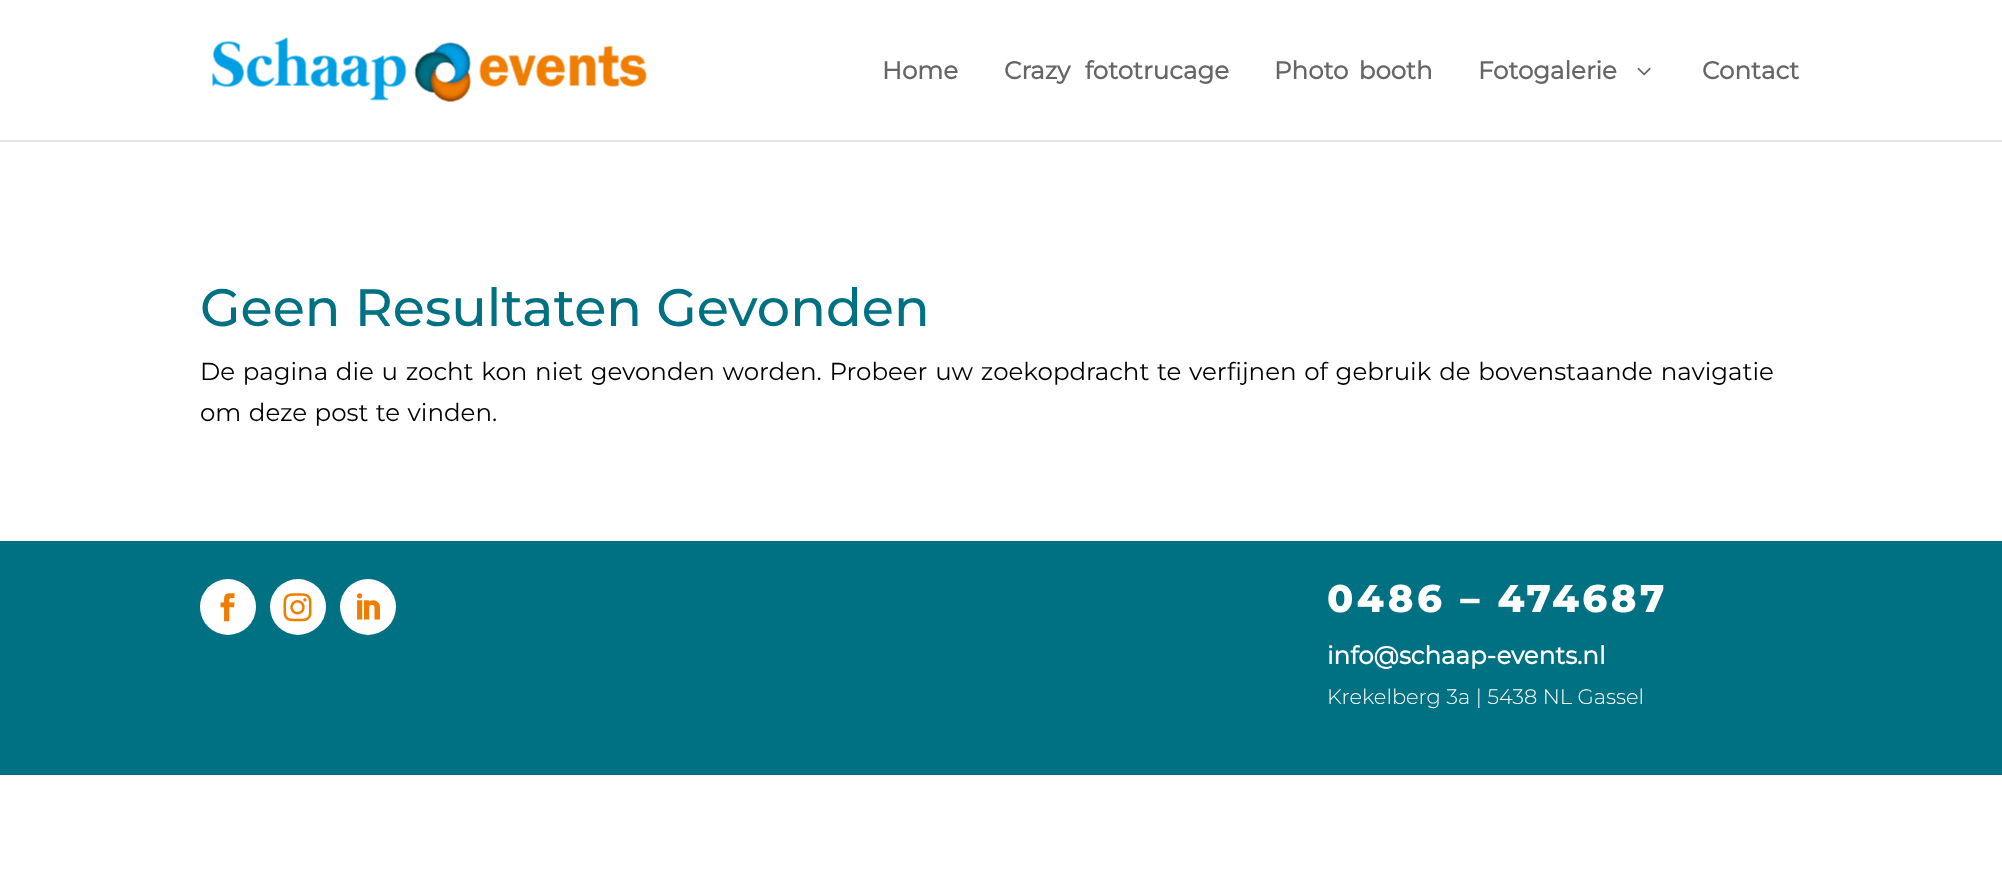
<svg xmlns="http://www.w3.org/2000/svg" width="2002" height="882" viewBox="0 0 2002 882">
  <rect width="100%" height="100%" fill="#fff"/>
  <path d="M0 140h2002v2H0z" fill="#e6e6e6"/>
  <image x="212" y="37" width="435" height="65" href="img/1.png"/>
  <image x="1637" y="67" width="14" height="9" href="img/2.png"/>
  <path d="M0 541h2002v234H0z" fill="#007083"/>
  <circle cx="228" cy="607" r="28" fill="#fff"/>
  <image x="220" y="593" width="15" height="29" href="img/3.png"/>
  <circle cx="298" cy="607" r="28" fill="#fff"/>
  <image x="283" y="593" width="29" height="29" href="img/4.png"/>
  <circle cx="368" cy="607" r="28" fill="#fff"/>
  <image x="357" y="593" width="23" height="27" href="img/5.png"/>
  <g font-family="Montserrat" font-size="24.5" font-weight="bold" fill="#666">
    <text x="882" y="79">Home</text>
    <text x="1004" y="79" word-spacing="8">Crazy fototrucage</text>
    <text x="1274" y="79" word-spacing="4">Photo booth</text>
    <text x="1478" y="79">Fotogalerie</text>
    <text x="1702" y="79">Contact</text>
  </g>
  <text x="200" y="326" font-family="Montserrat" font-size="52.5" font-weight="500" fill="#007083">Geen Resultaten Gevonden</text>
  <g font-family="Montserrat" font-size="24.5" fill="#000">
    <text x="200" y="380" word-spacing="1.3">De pagina die u zocht kon niet gevonden worden. Probeer uw zoekopdracht te verfijnen of gebruik de bovenstaande navigatie</text>
    <text x="200" y="421" word-spacing="1">om deze post te vinden.</text>
  </g>
  <text x="1327" y="612" font-family="Montserrat" font-size="38.5" font-weight="800" letter-spacing="3.5" fill="#fff">0486 – 474687</text>
  <text x="1327" y="664" font-family="Montserrat" font-size="24.5" font-weight="bold" fill="#fff">info@schaap-events.nl</text>
  <text x="1327" y="704" font-family="Montserrat" font-size="21" font-weight="300" fill="#fff">Krekelberg 3a | 5438 NL Gassel</text>
</svg>
